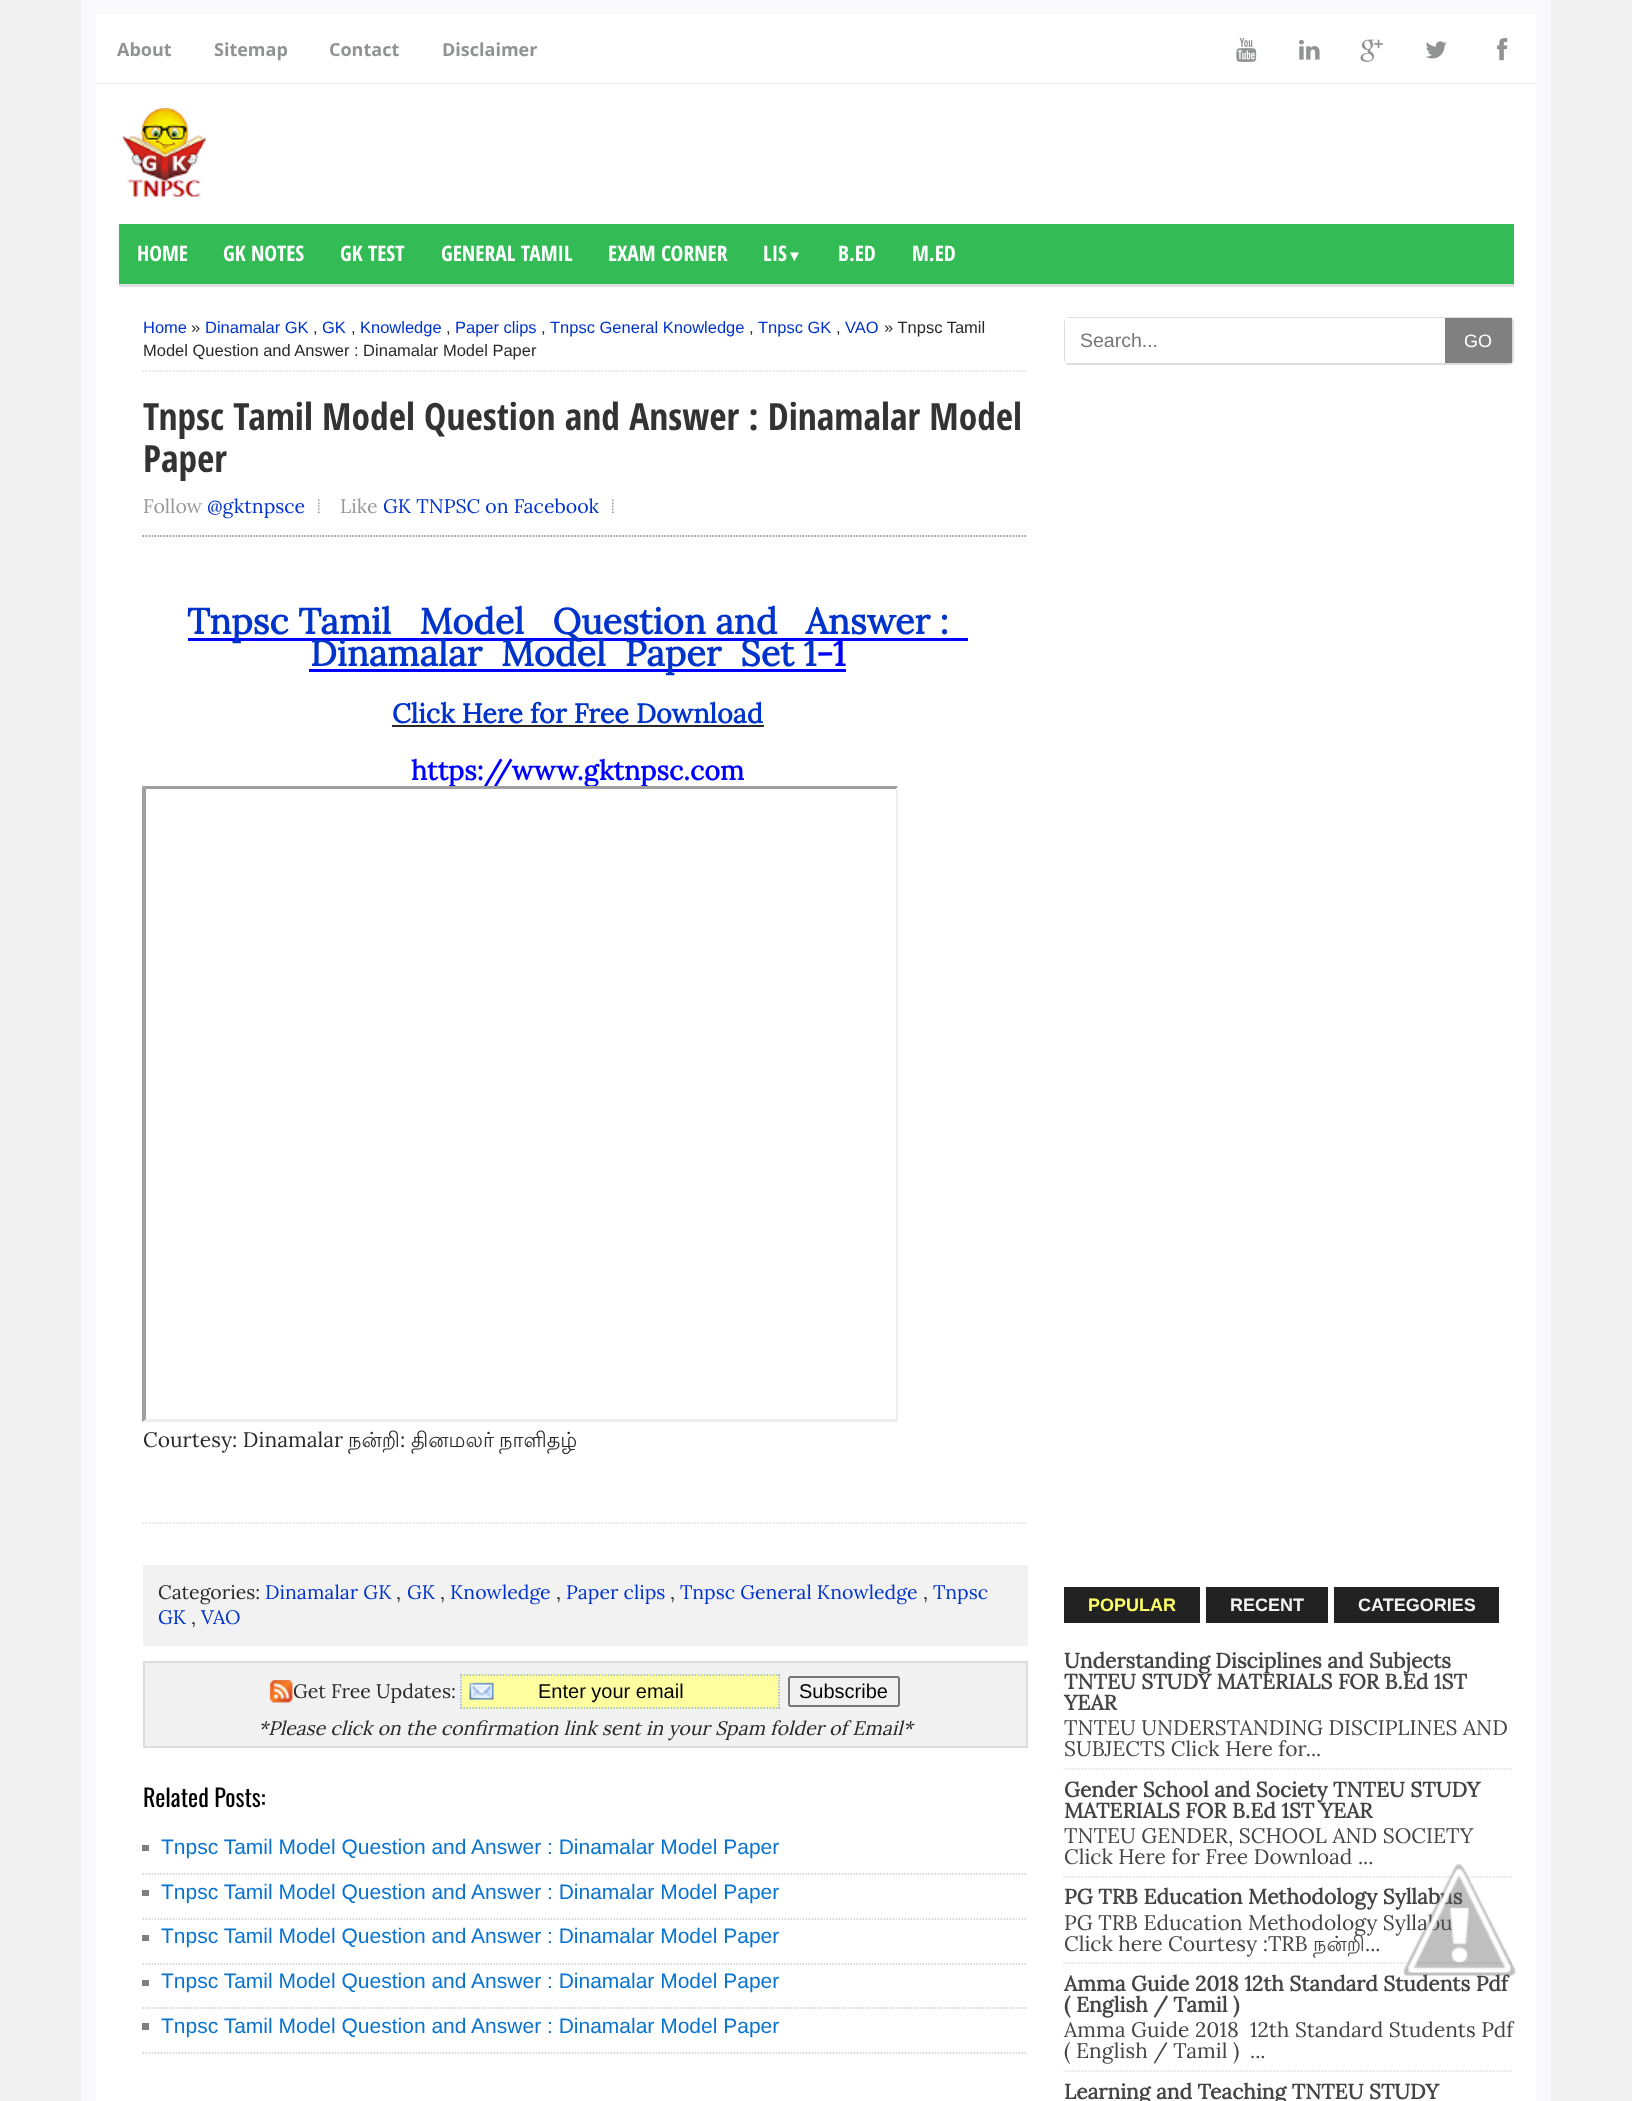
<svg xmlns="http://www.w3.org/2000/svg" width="1632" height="2101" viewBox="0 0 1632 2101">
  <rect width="100%" height="100%" fill="#f1f1f1"/>
  <path d="M88.5 7.5h1455v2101H88.5z" fill="none" stroke="#fafafc" stroke-width="15"/>
  <path d="M96 15h1440v68H96z" fill="#fff"/>
  <path d="M96 83h1440v1H96z" fill="#e9e9e9"/>
  <image x="1236" y="37" width="21" height="25" href="img/1.png"/>
  <image x="1299" y="39" width="21" height="21" href="img/2.png"/>
  <image x="1360" y="39" width="23" height="23" href="img/3.png"/>
  <image x="1425" y="41" width="22" height="18" href="img/4.png"/>
  <image x="1497" y="38" width="11" height="23" href="img/5.png"/>
  <path d="M96 84h1440v2017H96z" fill="#fff"/>
  <image x="122" y="108" width="84" height="89" href="img/6.png"/>
  <path d="M119 224h1395v60H119z" fill="#33bb56"/>
  <path d="M119 284h1395v3H119z" fill="#ddd"/>
  <path d="M142.5 371H1027.5" fill="none" stroke="#ddd" stroke-width="1.5" stroke-dasharray="1.5 1.5"/>
  <path d="M142.5 536H1027.5" fill="none" stroke="#777" stroke-width="1.5" stroke-dasharray="1.5 1.5"/>
  <image x="318" y="499" width="2" height="14" href="img/7.png"/>
  <image x="612" y="499" width="2" height="14" href="img/7.png"/>
  <path d="M142.5 1523H1027.5" fill="none" stroke="#ddd" stroke-width="1.5" stroke-dasharray="1.5 1.5"/>
  <path d="M309 669h537v3H309z" fill="#00f"/>
  <path d="M188 638h780v3H188z" fill="#00f"/>
  <path d="M392 725h372v2H392z" fill="#2b2828"/>
  <path d="M143 1565h885v81H143z" fill="#f2f2f2"/>
  <path d="M144 1662h883v85H144z" fill="#f1f1f1" stroke="#ddd" stroke-width="2"/>
  <image x="270" y="1680" width="23" height="23" href="img/8.png"/>
  <path d="M461 1674h319v35H461z" fill="#ffffa0"/>
  <image x="469" y="1682" width="25" height="18" href="img/9.png"/>
  <path d="M460.5 1675H780" fill="none" stroke="#8cafe3" stroke-width="1.5" stroke-dasharray="1.5 1.5"/>
  <path d="M779 1674V1708.5" fill="none" stroke="#8cafe3" stroke-width="1.5" stroke-dasharray="1.5 1.5"/>
  <path d="M460.5 1708H780" fill="none" stroke="#8cafe3" stroke-width="1.5" stroke-dasharray="1.5 1.5"/>
  <path d="M461 1674V1708.5" fill="none" stroke="#8cafe3" stroke-width="1.5" stroke-dasharray="1.5 1.5"/>
  <rect x="789" y="1677" width="110" height="29" rx="2" fill="none" stroke="#767676" stroke-width="2"/>
  <path d="M142 1845h7v6H142z" fill="#7f7f7f"/>
  <path d="M142.5 1874H1027.5" fill="none" stroke="#ccc" stroke-width="1.5" stroke-dasharray="1.5 1.5"/>
  <path d="M142 1890h7v6H142z" fill="#7f7f7f"/>
  <path d="M142.5 1919H1027.5" fill="none" stroke="#ccc" stroke-width="1.5" stroke-dasharray="1.5 1.5"/>
  <path d="M142 1935h7v6H142z" fill="#7f7f7f"/>
  <path d="M142.5 1964H1027.5" fill="none" stroke="#ccc" stroke-width="1.5" stroke-dasharray="1.5 1.5"/>
  <path d="M142 1980h7v6H142z" fill="#7f7f7f"/>
  <path d="M142.5 2008H1027.5" fill="none" stroke="#ccc" stroke-width="1.5" stroke-dasharray="1.5 1.5"/>
  <path d="M142 2023h7v7H142z" fill="#7f7f7f"/>
  <path d="M142.5 2053H1027.5" fill="none" stroke="#ccc" stroke-width="1.5" stroke-dasharray="1.5 1.5"/>
  <rect x="1065" y="318" width="448" height="46" rx="4" fill="none" stroke="#ddd" stroke-width="2"/>
  <path d="M1065 318h380v45H1065z" fill="#fff"/>
  <path d="M1445 318h67v45H1445z" fill="#808080"/>
  <path d="M1064 1587h136v36H1064z" fill="#222"/>
  <path d="M1206 1587h122v36H1206z" fill="#222"/>
  <path d="M1334 1587h165v36H1334z" fill="#222"/>
  <path d="M1063.5 1769H1513.5" fill="none" stroke="#ddd" stroke-width="1.5" stroke-dasharray="1.5 1.5"/>
  <path d="M1063.5 1877H1513.5" fill="none" stroke="#ddd" stroke-width="1.5" stroke-dasharray="1.5 1.5"/>
  <path d="M1063.5 1963H1513.5" fill="none" stroke="#ddd" stroke-width="1.5" stroke-dasharray="1.5 1.5"/>
  <path d="M1063.5 2071H1513.5" fill="none" stroke="#ddd" stroke-width="1.5" stroke-dasharray="1.5 1.5"/>
  <g font-family="Open Sans" font-size="18" font-weight="bold" fill="#919392">
    <text x="117" y="56">About</text>
    <text x="214" y="56">Sitemap</text>
    <text x="329" y="56">Contact</text>
    <text x="442" y="56">Disclaimer</text>
  </g>
  <g font-family="Open Sans Condensed" font-size="21.5" font-weight="bold" fill="#fff">
    <text x="137" y="261">HOME</text>
    <text x="223" y="261">GK NOTES</text>
    <text x="340" y="261">GK TEST</text>
    <text x="441" y="261">GENERAL TAMIL</text>
    <text x="608" y="261">EXAM CORNER</text>
    <text x="763" y="261">LIS</text>
  </g>
  <text x="787" y="261" font-family="Liberation Sans" font-size="15" fill="#fff">▼</text>
  <g font-family="Open Sans Condensed" font-size="21.5" font-weight="bold" fill="#fff">
    <text x="838" y="261">B.ED</text>
    <text x="912" y="261">M.ED</text>
  </g>
  <text x="143" y="333" font-family="Liberation Sans" font-size="16.5" fill="#03c">Home</text>
  <text x="191" y="333" font-family="Liberation Sans" font-size="16.5" fill="#2b2828">»</text>
  <g font-family="Liberation Sans" font-size="16.5" fill="#03c">
    <text x="205" y="333">Dinamalar GK</text>
    <text x="322" y="333">GK</text>
    <text x="360" y="333">Knowledge</text>
    <text x="455" y="333">Paper clips</text>
    <text x="550" y="333">Tnpsc General Knowledge</text>
    <text x="758" y="333">Tnpsc GK</text>
    <text x="845" y="333">VAO</text>
  </g>
  <g font-family="Liberation Sans" font-size="16.5" fill="#2b2828">
    <text x="884" y="333">» Tnpsc Tamil</text>
    <text x="313" y="333">,</text>
    <text x="351" y="333">,</text>
    <text x="446" y="333">,</text>
    <text x="541" y="333">,</text>
    <text x="749" y="333">,</text>
    <text x="836" y="333">,</text>
    <text x="143" y="356">Model Question and Answer : Dinamalar Model Paper</text>
  </g>
  <g font-family="Open Sans Condensed" font-size="37.5" font-weight="bold" fill="#333">
    <text x="143" y="430">Tnpsc Tamil Model Question and Answer : Dinamalar Model</text>
    <text x="143" y="472">Paper</text>
  </g>
  <text x="143" y="513" font-family="Lora" font-size="19.5" fill="#999">Follow</text>
  <text x="207" y="513" font-family="Lora" font-size="19.5" fill="#03c">@gktnpsce</text>
  <text x="340" y="513" font-family="Lora" font-size="19.5" fill="#999">Like</text>
  <text x="383" y="513" font-family="Lora" font-size="19.5" fill="#03c">GK TNPSC on Facebook</text>
  <g font-family="Lora" font-size="36" font-weight="bold" fill="#03c">
    <text x="187" y="634" xml:space="preserve">Tnpsc Tamil   Model   Question and   Answer :</text>
    <text x="310" y="666" xml:space="preserve">Dinamalar  Model  Paper  Set 1</text>
  </g>
  <text x="816" y="666" font-family="Lora" font-size="36" font-weight="bold" fill="#00f">-1</text>
  <text x="392" y="723" font-family="Lora" font-size="27" font-weight="bold" fill="#03c">Click Here for Free Download</text>
  <text x="411" y="780" font-family="Lora" font-size="27" font-weight="bold" fill="#00f">https://www.gktnpsc.com</text>
  <path d="M142 786H898L896 789H146Z" fill="#9f9f9f"/>
  <path d="M898 786V1422L896 1419V789Z" fill="#eee"/>
  <path d="M898 1422H142L146 1419H896Z" fill="#eee"/>
  <path d="M142 1422V786L146 789V1419Z" fill="#9f9f9f"/>
  <text x="143" y="1447" font-family="Lora" font-size="21" fill="#2b2828">Courtesy: Dinamalar</text>
  <text x="348" y="1447" font-family="Lohit Tamil" font-size="21" fill="#2b2828">நன்றி</text>
  <text x="400" y="1447" font-family="Lora" font-size="21" fill="#2b2828">:</text>
  <g font-family="Lohit Tamil" font-size="21" fill="#2b2828">
    <text x="411" y="1447">தினமலர்</text>
    <text x="499" y="1447">நாளிதழ்</text>
  </g>
  <text x="158" y="1599" font-family="Lora" font-size="19.5" fill="#2b2828">Categories:</text>
  <text x="265" y="1599" font-family="Lora" font-size="19.5" fill="#03c">Dinamalar GK</text>
  <text x="396" y="1599" font-family="Lora" font-size="19.5" fill="#2b2828">,</text>
  <text x="407" y="1599" font-family="Lora" font-size="19.5" fill="#03c">GK</text>
  <text x="440" y="1599" font-family="Lora" font-size="19.5" fill="#2b2828">,</text>
  <text x="450" y="1599" font-family="Lora" font-size="19.5" fill="#03c">Knowledge</text>
  <text x="556" y="1599" font-family="Lora" font-size="19.5" fill="#2b2828">,</text>
  <text x="566" y="1599" font-family="Lora" font-size="19.5" fill="#03c">Paper clips</text>
  <text x="670" y="1599" font-family="Lora" font-size="19.5" fill="#2b2828">,</text>
  <text x="680" y="1599" font-family="Lora" font-size="19.5" fill="#03c">Tnpsc General Knowledge</text>
  <text x="923" y="1599" font-family="Lora" font-size="19.5" fill="#2b2828">,</text>
  <g font-family="Lora" font-size="19.5" fill="#03c">
    <text x="933" y="1599">Tnpsc</text>
    <text x="158" y="1624">GK</text>
  </g>
  <text x="191" y="1624" font-family="Lora" font-size="19.5" fill="#2b2828">,</text>
  <text x="201" y="1624" font-family="Lora" font-size="19.5" fill="#03c">VAO</text>
  <text x="293" y="1698" font-family="Lora" font-size="19.5" fill="#2b2828">Get Free Updates:</text>
  <g font-family="Liberation Sans" font-size="20" fill="#000">
    <text x="538" y="1698">Enter your email</text>
    <text x="799" y="1698">Subscribe</text>
  </g>
  <text x="258" y="1735" font-family="Lora" font-size="19.5" font-style="italic" fill="#2b2828">*Please click on the confirmation link sent in your Spam folder of Email*</text>
  <text x="143" y="1807" font-family="Oswald" font-size="24" fill="#000">Related Posts:</text>
  <g font-family="Liberation Sans" font-size="21" fill="#0973cf">
    <text x="161" y="1854">Tnpsc Tamil Model Question and Answer : Dinamalar Model Paper</text>
    <text x="161" y="1899">Tnpsc Tamil Model Question and Answer : Dinamalar Model Paper</text>
    <text x="161" y="1943">Tnpsc Tamil Model Question and Answer : Dinamalar Model Paper</text>
    <text x="161" y="1988">Tnpsc Tamil Model Question and Answer : Dinamalar Model Paper</text>
    <text x="161" y="2033">Tnpsc Tamil Model Question and Answer : Dinamalar Model Paper</text>
  </g>
  <text x="1080" y="347" font-family="Liberation Sans" font-size="19.5" fill="#757575">Search...</text>
  <text x="1464" y="347" font-family="Liberation Sans" font-size="18" fill="#fff">GO</text>
  <text x="1088" y="1611" font-family="Liberation Sans" font-size="18" font-weight="bold" fill="#ff6">POPULAR</text>
  <g font-family="Liberation Sans" font-size="18" font-weight="bold" fill="#f2f2f2">
    <text x="1230" y="1611">RECENT</text>
    <text x="1358" y="1611">CATEGORIES</text>
  </g>
  <g font-family="Lora" font-size="21" font-weight="bold" fill="#444">
    <text x="1064" y="1668">Understanding Disciplines and Subjects</text>
    <text x="1064" y="1689">TNTEU STUDY MATERIALS FOR B.Ed 1ST</text>
    <text x="1064" y="1710">YEAR</text>
  </g>
  <g font-family="Lora" font-size="21" fill="#444">
    <text x="1064" y="1735">TNTEU UNDERSTANDING DISCIPLINES AND</text>
    <text x="1064" y="1756">SUBJECTS Click Here for...</text>
  </g>
  <g font-family="Lora" font-size="21" font-weight="bold" fill="#444">
    <text x="1064" y="1797">Gender School and Society TNTEU STUDY</text>
    <text x="1064" y="1818">MATERIALS FOR B.Ed 1ST YEAR</text>
  </g>
  <g font-family="Lora" font-size="21" fill="#444">
    <text x="1064" y="1843">TNTEU GENDER, SCHOOL AND SOCIETY</text>
    <text x="1064" y="1864">Click Here for Free Download ...</text>
  </g>
  <text x="1064" y="1904" font-family="Lora" font-size="21" font-weight="bold" fill="#444">PG TRB Education Methodology Syllabus</text>
  <g font-family="Lora" font-size="21" fill="#444">
    <text x="1064" y="1930">PG TRB Education Methodology Syllabu</text>
    <text x="1064" y="1951">Click here Courtesy :TRB</text>
  </g>
  <text x="1313" y="1951" font-family="Lohit Tamil" font-size="21" fill="#444">நன்றி</text>
  <text x="1365" y="1951" font-family="Lora" font-size="21" fill="#444">...</text>
  <g font-family="Lora" font-size="21" font-weight="bold" fill="#444">
    <text x="1064" y="1991">Amma Guide 2018 12th Standard Students Pdf</text>
    <text x="1064" y="2012">( English / Tamil )</text>
  </g>
  <g font-family="Lora" font-size="21" fill="#444">
    <text x="1064" y="2037" xml:space="preserve">Amma Guide 2018  12th Standard Students Pdf</text>
    <text x="1064" y="2058">( English / Tamil )</text>
    <text x="1250" y="2058">...</text>
  </g>
  <text x="1064" y="2099" font-family="Lora" font-size="21" font-weight="bold" fill="#444">Learning and Teaching TNTEU STUDY</text>
  <image x="1403" y="1864" width="113" height="112" href="img/10.png"/>
</svg>
